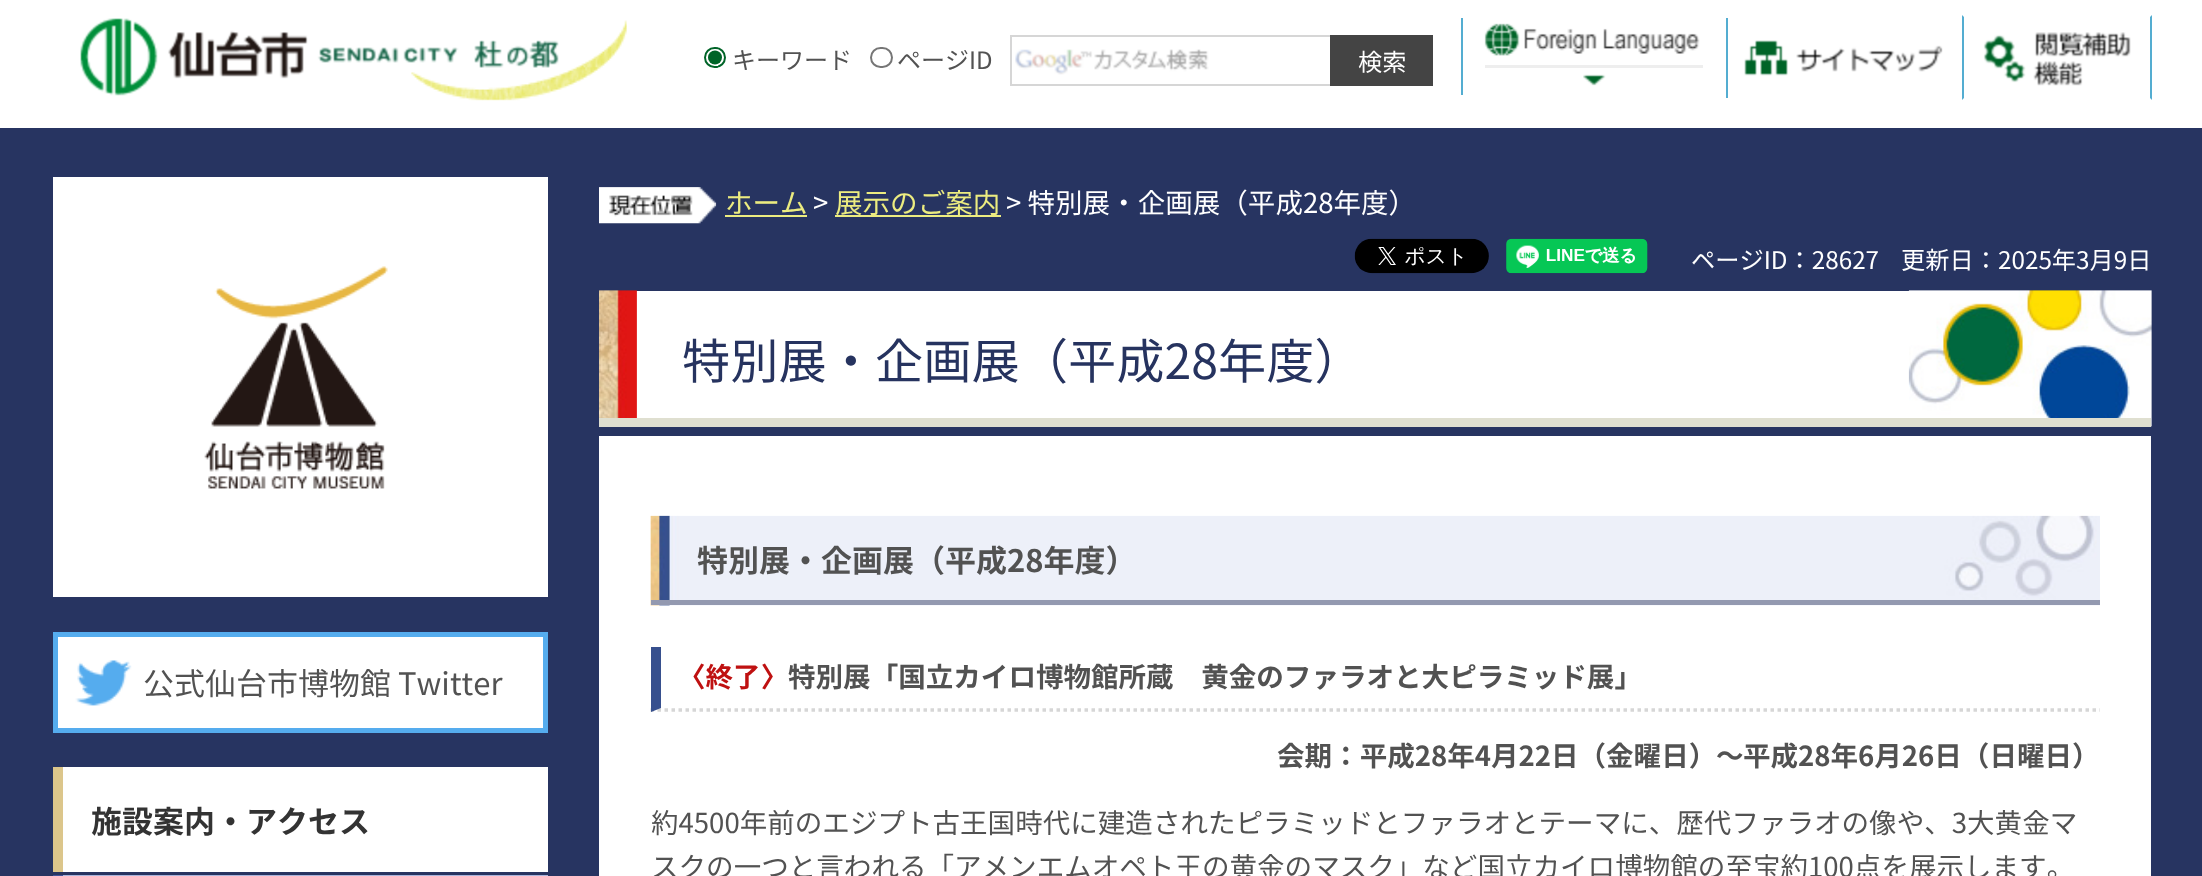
<svg xmlns="http://www.w3.org/2000/svg" width="2202" height="876" viewBox="0 0 2202 876">
  <rect width="100%" height="100%" fill="#273461"/>
  <path d="M0 0h2202v128H0z" fill="#fff"/>
  <image x="411" y="20" width="216" height="81" href="img/1.png"/>
  <image x="80" y="18" width="479" height="78" href="img/2.png"/>
  <rect x="705" y="48" width="20" height="19" rx="9.5" fill="none" stroke="#006428" stroke-width="2"/>
  <circle cx="715" cy="57.5" r="7" fill="#006428"/>
  <rect x="871" y="48" width="21" height="19" rx="9.5" fill="none" stroke="#767676" stroke-width="2"/>
  <image x="1015" y="49" width="194" height="26" href="img/3.png"/>
  <path d="M1010 35h320v2H1010z" fill="#d6d6d6"/>
  <path d="M1010 84h320v2H1010z" fill="#d6d6d6"/>
  <path d="M1010 35h2v51H1010z" fill="#d6d6d6"/>
  <path d="M1330 35h103v51H1330z" fill="#444"/>
  <path d="M1485 65h218v3H1485z" fill="#eee"/>
  <path d="M1461 18h2v77H1461z" fill="#54add1"/>
  <image x="1484" y="23" width="216" height="33" href="img/4.png"/>
  <image x="1583" y="74" width="23" height="12" href="img/5.png"/>
  <path d="M1726 18h2v80H1726z" fill="#54add1"/>
  <image x="1744" y="40" width="199" height="36" href="img/6.png"/>
  <path d="M2152 15V100L2150 98V17Z" fill="#54add1"/>
  <path d="M1962 100V15L1964 17V98Z" fill="#54add1"/>
  <image x="1983" y="32" width="148" height="54" href="img/7.png"/>
  <path d="M53 177h495v420H53z" fill="#fff"/>
  <image x="204" y="266" width="184" height="223" href="img/8.png"/>
  <path d="M58 637h485v91H58z" fill="#fff"/>
  <image x="75" y="660" width="57" height="46" href="img/9.png"/>
  <path d="M55.5 634.5h490v96H55.5z" fill="none" stroke="#55acee" stroke-width="5"/>
  <path d="M63 767h485v105H63z" fill="#fff"/>
  <path d="M53 767h10v105H53z" fill="#dcc68b"/>
  <path d="M63 875h485v1H63z" fill="#a9b5dc"/>
  <path d="M53 875h10v1H53z" fill="#3f539a"/>
  <image x="599" y="187" width="118" height="37" href="img/10.png"/>
  <path d="M725 215h82v2H725z" fill="#ecec80"/>
  <path d="M835 215h166v2H835z" fill="#ecec80"/>
  <image x="1354" y="238" width="135" height="36" href="img/11.png"/>
  <image x="1506" y="238" width="142" height="36" href="img/12.png"/>
  <path d="M636 291h1273v127H636z" fill="#fff"/>
  <image x="599" y="290" width="38" height="128" href="img/13.png"/>
  <image x="1908" y="290" width="244" height="137" href="img/14.png"/>
  <path d="M599 418h1552v9H599z" fill="#dfdfd0"/>
  <path d="M599 436h1552v440H599z" fill="#fff"/>
  <image x="650" y="515" width="1450" height="91" href="img/15.png"/>
  <path d="M651 600h1449v5H651z" fill="#9399b0"/>
  <path d="M650.5 710H2100" fill="none" stroke="#d6d6d6" stroke-width="3.4" stroke-dasharray="3.5 3.5"/>
  <path d="M651 712V647H661V708Z" fill="#37508e"/>
  <g font-family="Noto Sans JP" font-size="24" fill="#525252">
    <text x="732" y="69">キーワード</text>
    <text x="897" y="69">ページID</text>
  </g>
  <text x="1358" y="71" font-family="Noto Sans JP" font-size="24.25" fill="#fff">検索</text>
  <text x="143" y="695" font-family="Noto Sans JP" font-size="31" fill="#525252">公式仙台市博物館 Twitter</text>
  <text x="91" y="833" font-family="Noto Sans JP" font-size="31" font-weight="bold" fill="#333">施設案内・アクセス</text>
  <text x="725" y="213" font-family="Noto Sans JP" font-size="27.55" fill="#ecec80">ホーム</text>
  <text x="813" y="213" font-family="Noto Sans JP" font-size="27.55" fill="#fff">&gt;</text>
  <text x="835" y="213" font-family="Noto Sans JP" font-size="27.55" fill="#ecec80">展示のご案内</text>
  <text x="1006" y="213" font-family="Noto Sans JP" font-size="27.55" fill="#fff">&gt; 特別展・企画展（平成28年度）</text>
  <g font-family="Noto Sans JP" font-size="24.25" fill="#fff">
    <text x="1691" y="269">ページID：28627</text>
    <text x="1901" y="269">更新日：2025年3月9日</text>
  </g>
  <text x="682" y="379" font-family="Noto Sans JP" font-size="48.25" fill="#26335f">特別展・企画展（平成28年度）</text>
  <text x="697" y="572" font-family="Noto Sans JP" font-size="31" font-weight="bold" fill="#525252">特別展・企画展（平成28年度）</text>
  <text x="678" y="687" font-family="Noto Sans JP" font-size="27.55" font-weight="bold" fill="#bf1111">〈終了〉</text>
  <g font-family="Noto Sans JP" font-size="27.55" font-weight="bold" fill="#525252">
    <text x="788" y="687">特別展「国立カイロ博物館所蔵　黄金のファラオと大ピラミッド展」</text>
    <text x="1277" y="766">会期：平成28年4月22日（金曜日）</text>
  </g>
  <text x="1716" y="766" font-family="'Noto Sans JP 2'" font-size="27.55" font-weight="bold" fill="#525252">～</text>
  <text x="1743" y="766" font-family="Noto Sans JP" font-size="27.55" font-weight="bold" fill="#525252">平成28年6月26日（日曜日）</text>
  <g font-family="Noto Sans JP" font-size="27.55" fill="#525252">
    <text x="651" y="833">約4500年前のエジプト古王国時代に建造されたピラミッドとファラオとテーマに、歴代ファラオの像や、3大黄金マ</text>
    <text x="651" y="877">スクの一つと言われる「アメンエムオペト王の黄金のマスク」など国立カイロ博物館の至宝約100点を展示します。</text>
  </g>
</svg>
